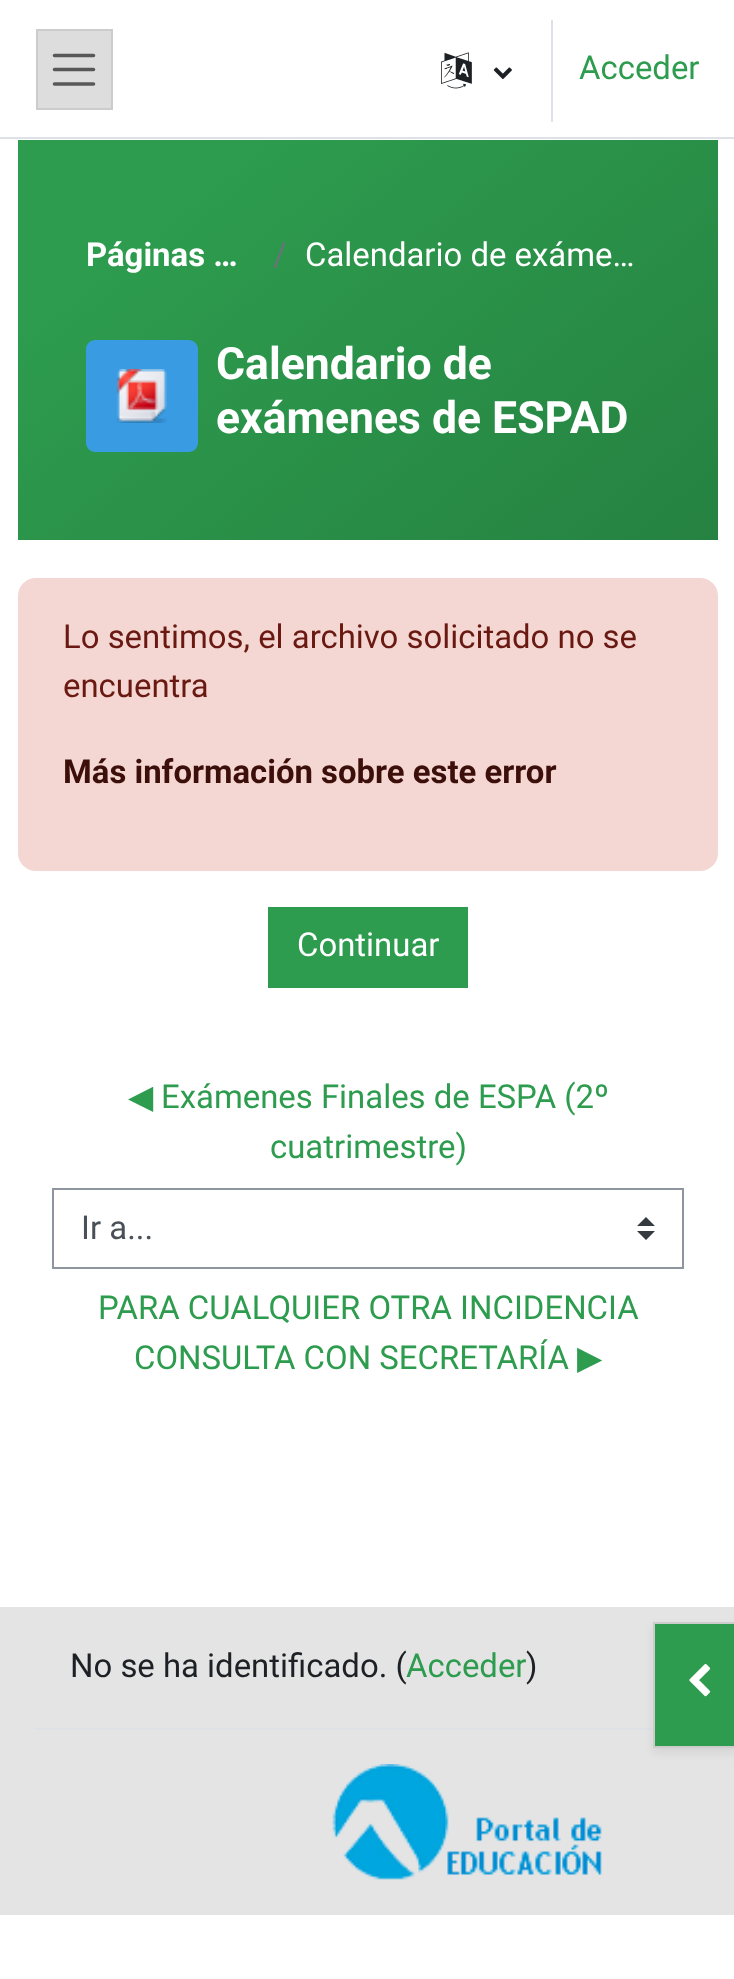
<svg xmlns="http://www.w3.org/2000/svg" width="734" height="1979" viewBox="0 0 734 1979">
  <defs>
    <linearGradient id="g1" gradientUnits="userSpaceOnUse" x1="130" y1="44" x2="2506" y2="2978"><stop offset="0.04" stop-color="#2d9c4e"/><stop offset="1" stop-color="#000"/></linearGradient>
  </defs>
  <rect width="100%" height="100%" fill="#fff"/>
  <path d="M0 137h734v2H0z" fill="#dee2e6"/>
  <path d="M37 30h75v79H37z" fill="#ddd" stroke="#ccc" stroke-width="2"/>
  <path d="M54.5 55.5H93.5M54.5 69.5H93.5M54.5 84H93.5" fill="none" stroke="#585858" stroke-width="3.6" stroke-linecap="round"/>
  <image x="441" y="52" width="31" height="37" href="img/1.png"/>
  <image x="493" y="67" width="19" height="13" href="img/2.png"/>
  <path d="M551 20h2v102H551z" fill="#dee2e6"/>
  <path d="M18 140h700v400H18z" fill="url(#g1)"/>
  <rect x="86" y="340" width="112" height="112" rx="9" fill="#399be2"/>
  <image x="116" y="369" width="51" height="54" href="img/3.png"/>
  <rect x="18" y="578" width="700" height="293" rx="18" fill="#f4d6d2"/>
  <path d="M268 907h200v81H268z" fill="#2d9c4e"/>
  <path d="M646 1217L637 1226H655ZM646 1240L637 1231H655Z" fill="#343a40"/>
  <path d="M53 1189h630v79H53z" fill="none" stroke="#8f959e" stroke-width="2"/>
  <path d="M0 1607h734v308H0z" fill="#e4e4e4"/>
  <path d="M34 1728h619v2H34z" fill="#dee2e6"/>
  <path d="M653 1627h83v126H653z" fill="#00000012" filter="blur(4.5px)"/>
  <path d="M654 1623h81v124H654z" fill="#2d9c4e" stroke="#ccc" stroke-width="2"/>
  <image x="689" y="1663" width="22" height="34" href="img/4.png"/>
  <image x="332" y="1764" width="270" height="116" href="img/5.png"/>
  <text x="579" y="79" font-family="Roboto" font-size="32.9" fill="#2d9c4e">Acceder</text>
  <text x="86" y="266" font-family="Roboto" font-size="32.9" font-weight="bold" fill="#fff">Páginas …</text>
  <text x="273" y="266" font-family="Roboto" font-size="32.9" fill="#6a737b">/</text>
  <text x="305" y="266" font-family="Roboto" font-size="32.9" fill="#fff">Calendario de exáme…</text>
  <g font-family="Roboto" font-size="44.5" font-weight="bold" fill="#fff">
    <text x="216" y="379">Calendario de</text>
    <text x="216" y="433">exámenes de ESPAD</text>
  </g>
  <g font-family="Roboto" font-size="32.9" fill="#691911">
    <text x="63" y="648">Lo sentimos, el archivo solicitado no se</text>
    <text x="63" y="697">encuentra</text>
  </g>
  <text x="63" y="783" font-family="Roboto" font-size="32.9" font-weight="bold" fill="#3d0f0a">Más información sobre este error</text>
  <text x="297" y="956" font-family="Roboto" font-size="32.9" fill="#fff">Continuar</text>
  <text x="128" y="1108" font-family="DejaVu Sans" font-size="32.9" fill="#2d9c4e">◀︎</text>
  <g font-family="Roboto" font-size="32.9" fill="#2d9c4e">
    <text x="161" y="1108">Exámenes Finales de ESPA (2º</text>
    <text x="270" y="1158">cuatrimestre)</text>
  </g>
  <text x="81" y="1239" font-family="Roboto" font-size="32.9" fill="#495057">Ir a...</text>
  <g font-family="Roboto" font-size="32.9" fill="#2d9c4e">
    <text x="98" y="1319">PARA CUALQUIER OTRA INCIDENCIA</text>
    <text x="134" y="1369">CONSULTA CON SECRETARÍA</text>
  </g>
  <text x="577" y="1369" font-family="DejaVu Sans" font-size="32.9" fill="#2d9c4e">▶︎</text>
  <text x="70" y="1677" font-family="Roboto" font-size="32.9" fill="#1d2125">No se ha identificado. (</text>
  <text x="406" y="1677" font-family="Roboto" font-size="32.9" fill="#2d9c4e">Acceder</text>
  <text x="526" y="1677" font-family="Roboto" font-size="32.9" fill="#1d2125">)</text>
</svg>
